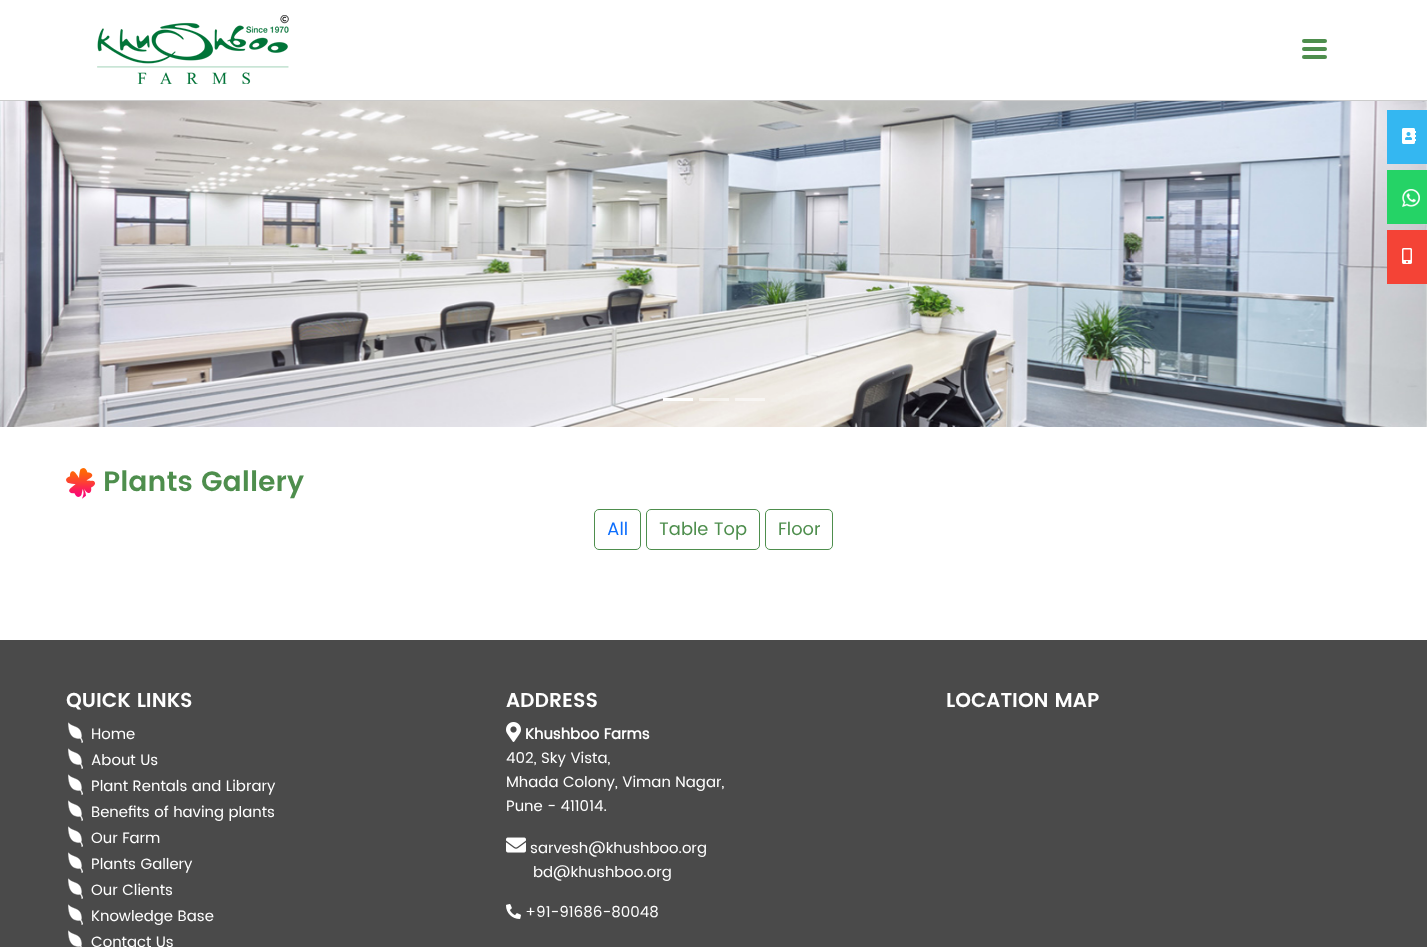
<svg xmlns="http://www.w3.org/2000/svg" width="1427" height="947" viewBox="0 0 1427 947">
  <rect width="100%" height="100%" fill="#fff"/>
  <path d="M0 100h1427v1H0z" fill="#ccc"/>
  <image x="97" y="15" width="192" height="69" href="img/1.png"/>
  <rect x="1302" y="39" width="25" height="4" rx="2" fill="#4e8e4d"/>
  <rect x="1302" y="47" width="25" height="4" rx="2" fill="#4e8e4d"/>
  <rect x="1302" y="55" width="25" height="4" rx="2" fill="#4e8e4d"/>
  <image x="0" y="101" width="1427" height="326" href="img/2.png"/>
  <path d="M663 398h30v3H663z" fill="#fff"/>
  <path d="M699 398h30v3H699z" fill="#ffffff80"/>
  <path d="M735 398h30v3H735z" fill="#ffffff80"/>
  <path d="M1387 110h40v54H1387z" fill="#34b7f1"/>
  <image x="1402" y="128" width="14" height="16" href="img/3.png"/>
  <path d="M1387 170h40v54H1387z" fill="#25d366"/>
  <image x="1402" y="189" width="18" height="18" href="img/4.png"/>
  <path d="M1387 230h40v54H1387z" fill="#f44336"/>
  <image x="1402" y="248" width="10" height="16" href="img/5.png"/>
  <image x="66" y="468" width="29" height="31" href="img/6.png"/>
  <rect x="594.5" y="509.5" width="46" height="40" rx="4.5" fill="none" stroke="#4e8e4d"/>
  <rect x="646.5" y="509.5" width="113" height="40" rx="4.5" fill="none" stroke="#4e8e4d"/>
  <rect x="765.5" y="509.5" width="67" height="40" rx="4.5" fill="none" stroke="#4e8e4d"/>
  <path d="M0 640h1427v307H0z" fill="#4a4a4a"/>
  <image x="68" y="722" width="15" height="21" href="img/7.png"/>
  <image x="68" y="748" width="15" height="21" href="img/7.png"/>
  <image x="68" y="774" width="15" height="21" href="img/7.png"/>
  <image x="68" y="800" width="15" height="21" href="img/7.png"/>
  <image x="68" y="826" width="15" height="21" href="img/7.png"/>
  <image x="68" y="852" width="15" height="21" href="img/7.png"/>
  <image x="68" y="878" width="15" height="21" href="img/7.png"/>
  <image x="68" y="904" width="15" height="21" href="img/7.png"/>
  <image x="68" y="930" width="14" height="17" href="img/8.png"/>
  <image x="506" y="722" width="15" height="20" href="img/9.png"/>
  <image x="506" y="837" width="20" height="16" href="img/10.png"/>
  <image x="506" y="904" width="15" height="15" href="img/11.png"/>
  <text x="103" y="491" font-family="Poppins" font-size="28" font-weight="600" fill="#4e8e4d">Plants Gallery</text>
  <text x="607" y="535" font-family="Poppins" font-size="18" fill="#0d6efd">All</text>
  <g font-family="Poppins" font-size="18" fill="#4e8e4d">
    <text x="659" y="535">Table Top</text>
    <text x="778" y="535">Floor</text>
  </g>
  <text x="66" y="707" font-family="Poppins" font-size="20" font-weight="600" fill="#fff">QUICK LINKS</text>
  <g font-family="Poppins" font-size="15" fill="#fff">
    <text x="91" y="739">Home</text>
    <text x="91" y="765">About Us</text>
    <text x="91" y="791">Plant Rentals and Library</text>
    <text x="91" y="817">Benefits of having plants</text>
    <text x="91" y="843">Our Farm</text>
    <text x="91" y="869">Plants Gallery</text>
    <text x="91" y="895">Our Clients</text>
    <text x="91" y="921">Knowledge Base</text>
    <text x="91" y="947">Contact Us</text>
  </g>
  <text x="506" y="707" font-family="Poppins" font-size="20" font-weight="600" fill="#fff">ADDRESS</text>
  <text x="525" y="739" font-family="Poppins" font-size="15" font-weight="bold" fill="#fff">Khushboo Farms</text>
  <g font-family="Poppins" font-size="15" fill="#fff">
    <text x="506" y="763">402, Sky Vista,</text>
    <text x="506" y="787">Mhada Colony, Viman Nagar,</text>
    <text x="506" y="811">Pune - 411014.</text>
    <text x="530" y="853">sarvesh@khushboo.org</text>
    <text x="533" y="877">bd@khushboo.org</text>
    <text x="525" y="917">+91-91686-80048</text>
  </g>
  <text x="946" y="707" font-family="Poppins" font-size="20" font-weight="600" fill="#fff">LOCATION MAP</text>
</svg>
